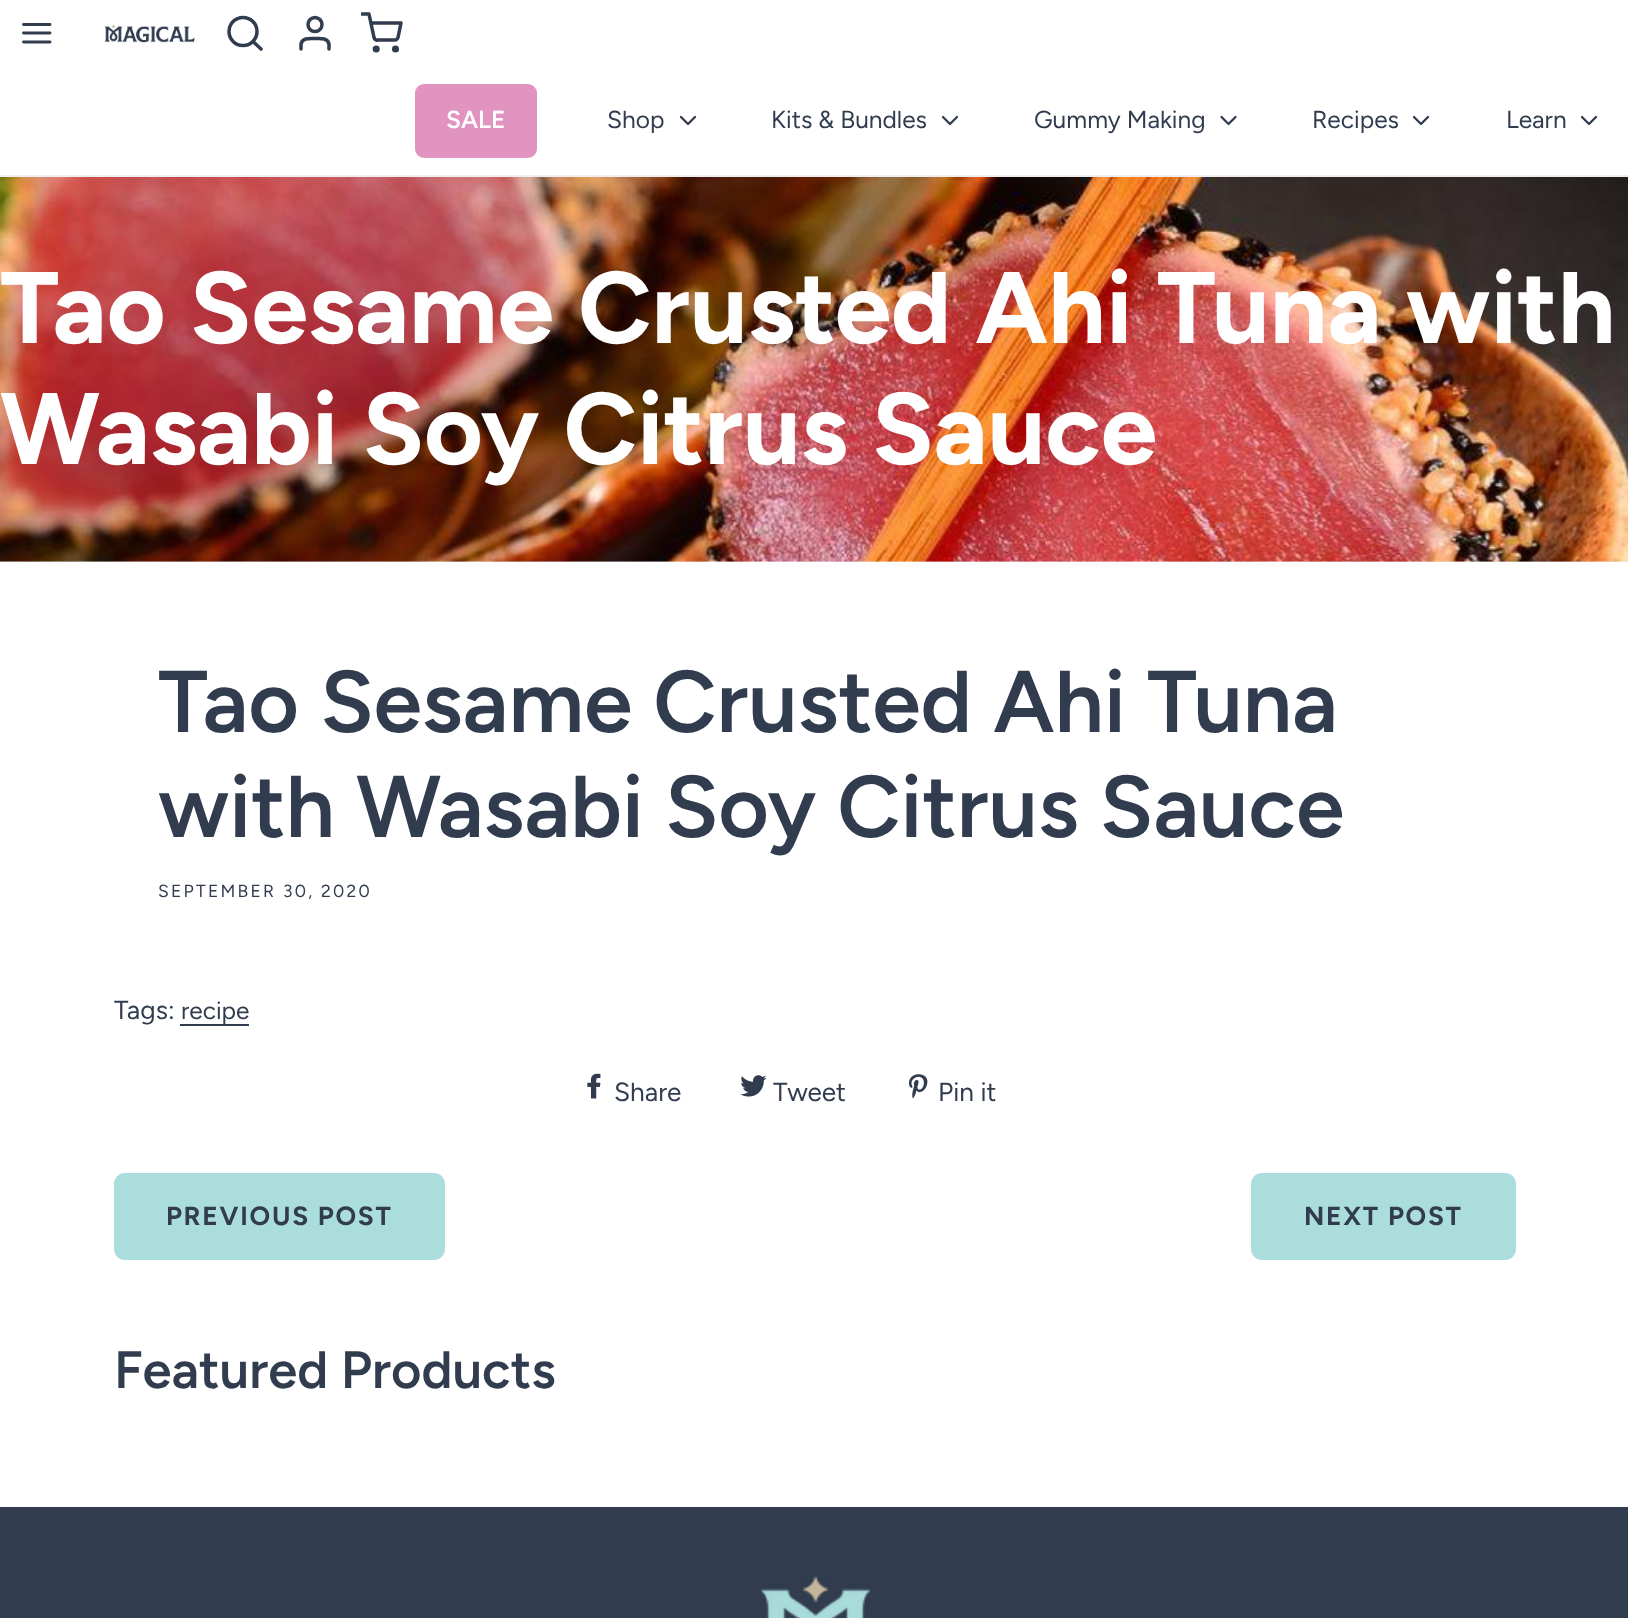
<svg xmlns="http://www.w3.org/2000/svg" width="1628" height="1618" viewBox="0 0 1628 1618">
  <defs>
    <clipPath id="clip1"><path d="M361 12h42v42H361z"/></clipPath>
  </defs>
  <rect width="100%" height="100%" fill="#fff"/>
  <path d="M0 175h1628v2H0z" fill="#efeff1"/>
  <path d="M23.5 33H50M23.5 24.5H50M23.5 42H50" fill="none" stroke="#323c4f" stroke-width="2.9" stroke-linecap="round" stroke-linejoin="round"/>
  <image x="104" y="24" width="91" height="19" href="img/1.png"/>
  <circle cx="243" cy="31.5" r="14" fill="none" stroke="#323c4f" stroke-width="3.5"/>
  <path d="M261 49L253 41.5" fill="none" stroke="#323c4f" stroke-width="3.5" stroke-linecap="round" stroke-linejoin="round"/>
  <path d="M329 49V44C327.5 37.5 320 38.5 315 38.5C310 38.5 302.5 37.5 301 44V49" fill="none" stroke="#323c4f" stroke-width="3.5" stroke-linecap="round" stroke-linejoin="round"/>
  <circle cx="315" cy="24.5" r="7" fill="none" stroke="#323c4f" stroke-width="3.5"/>
  <circle cx="376.2" cy="49" r="1.8" fill="none" stroke="#323c4f" stroke-width="3.5"/>
  <circle cx="395.5" cy="49" r="1.8" fill="none" stroke="#323c4f" stroke-width="3.5"/>
  <g clip-path="url(#clip1)">
    <path d="M362 14H369L374 37.5C374.5 39 375.5 40.5 377.5 40H394.5C396 40.5 397.5 39 398 37.5L401 23H371" fill="none" stroke="#323c4f" stroke-width="3.5" stroke-linecap="round" stroke-linejoin="round"/>
  </g>
  <rect x="415" y="84" width="122" height="74" rx="9" fill="#e094bf"/>
  <path d="M681 117L688 124L695 117" fill="none" stroke="#323c4f" stroke-width="2.3" stroke-linecap="round" stroke-linejoin="round"/>
  <path d="M943 117L950 124L957 117" fill="none" stroke="#323c4f" stroke-width="2.3" stroke-linecap="round" stroke-linejoin="round"/>
  <path d="M1221.5 117L1228.5 124L1235.5 117" fill="none" stroke="#323c4f" stroke-width="2.3" stroke-linecap="round" stroke-linejoin="round"/>
  <path d="M1414 117L1421 124L1428 117" fill="none" stroke="#323c4f" stroke-width="2.3" stroke-linecap="round" stroke-linejoin="round"/>
  <path d="M1582 117L1589 124L1596 117" fill="none" stroke="#323c4f" stroke-width="2.3" stroke-linecap="round" stroke-linejoin="round"/>
  <path d="M0 561h1628v1H0z" fill="#ebecee"/>
  <image x="0" y="177" width="1628" height="385" href="img/2.png"/>
  <path d="M180 1024h69v2H180z" fill="#323c4f"/>
  <image x="587" y="1073" width="14" height="26" href="img/3.png"/>
  <image x="740" y="1075" width="27" height="22" href="img/4.png"/>
  <image x="908" y="1074" width="20" height="25" href="img/5.png"/>
  <rect x="114" y="1173" width="331" height="87" rx="11" fill="#abdddc"/>
  <rect x="1251" y="1173" width="265" height="87" rx="11" fill="#abdddc"/>
  <path d="M0 1507h1628v111H0z" fill="#323c4f"/>
  <image x="761" y="1576" width="110" height="42" href="img/6.png"/>
  <text x="446" y="128" font-family="Figtree" font-size="24.5" font-weight="600" fill="#fff">SALE</text>
  <g font-family="Figtree" font-size="24.5" fill="#323c4f">
    <text x="607" y="128">Shop</text>
    <text x="771" y="128">Kits &amp; Bundles</text>
    <text x="1034" y="128">Gummy Making</text>
    <text x="1312" y="128">Recipes</text>
    <text x="1506" y="128">Learn</text>
  </g>
  <g font-family="Figtree" font-size="101.5" font-weight="bold" fill="#fff">
    <text x="0" y="343">Tao Sesame Crusted Ahi Tuna with</text>
    <text x="0" y="464">Wasabi Soy Citrus Sauce</text>
  </g>
  <g font-family="Figtree" font-size="87.5" font-weight="600" fill="#323c4f">
    <text x="158" y="732">Tao Sesame Crusted Ahi Tuna</text>
    <text x="158" y="837">with Wasabi Soy Citrus Sauce</text>
  </g>
  <text x="158" y="897" font-family="Figtree" font-size="17.5" letter-spacing="2.25" fill="#323c4f">SEPTEMBER 30, 2020</text>
  <text x="114" y="1019" font-family="Figtree" font-size="26.25" fill="#323c4f">Tags:</text>
  <text x="181" y="1019" font-family="Figtree" font-size="24.5" fill="#323c4f">recipe</text>
  <g font-family="Figtree" font-size="26.25" fill="#323c4f">
    <text x="614" y="1101">Share</text>
    <text x="773" y="1101">Tweet</text>
    <text x="938" y="1101">Pin it</text>
  </g>
  <g font-family="Figtree" font-size="26.25" font-weight="bold" letter-spacing="1.75" fill="#323c4f">
    <text x="166" y="1225">PREVIOUS POST</text>
    <text x="1304" y="1225">NEXT POST</text>
  </g>
  <text x="114" y="1388" font-family="Figtree" font-size="52.5" font-weight="600" fill="#323c4f">Featured Products</text>
</svg>
